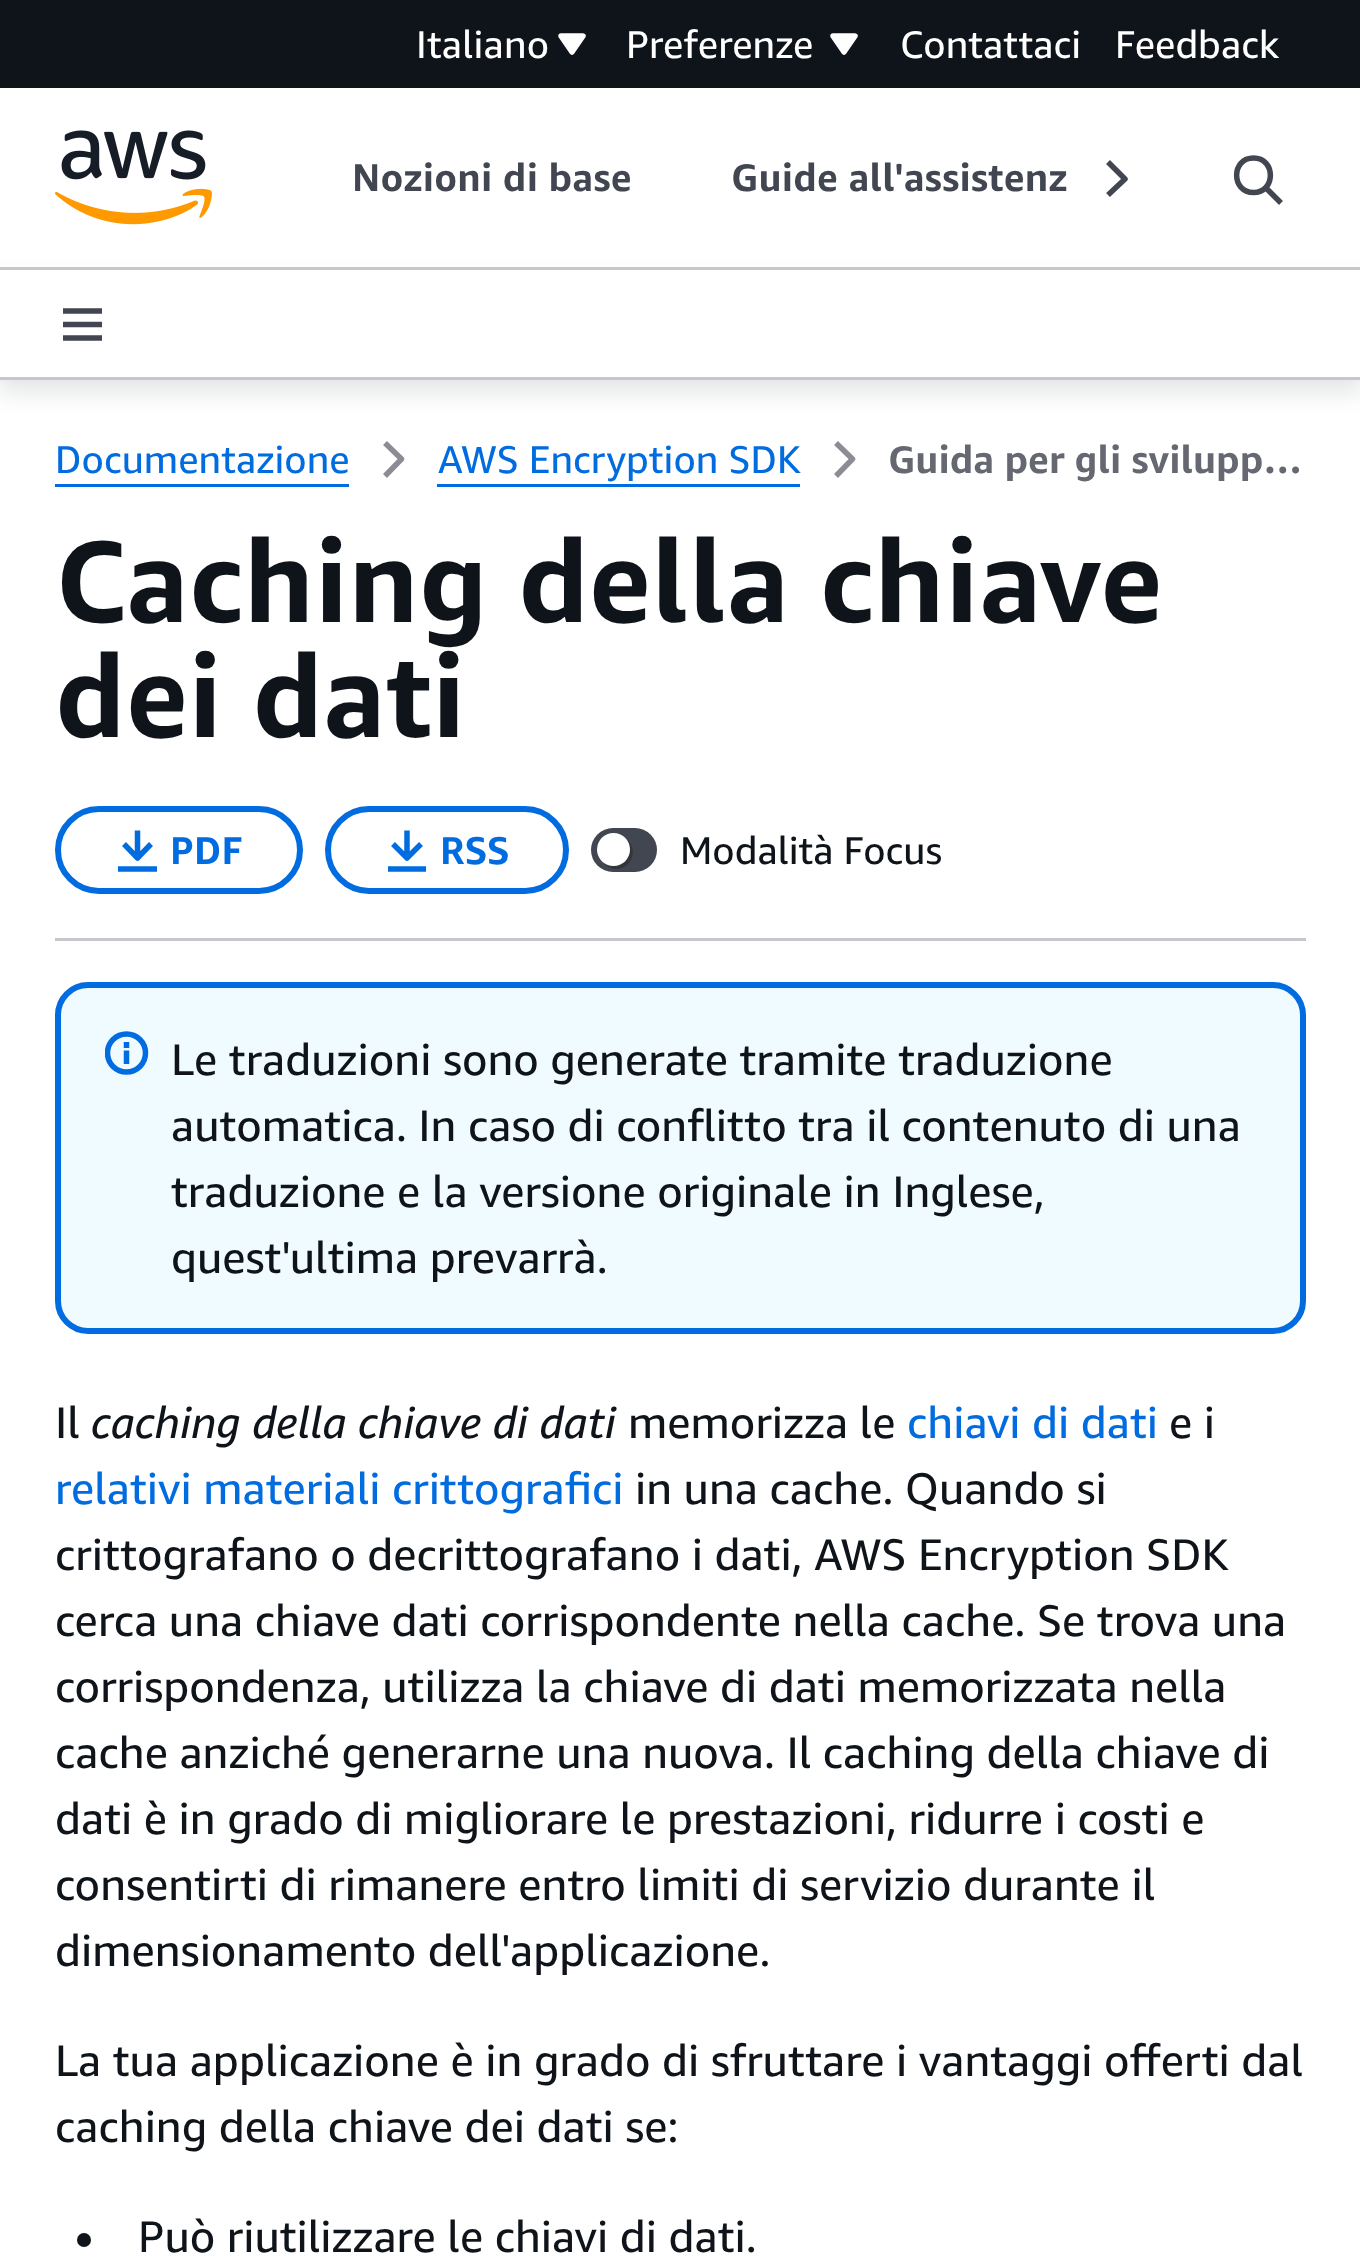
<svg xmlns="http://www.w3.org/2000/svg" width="1360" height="2267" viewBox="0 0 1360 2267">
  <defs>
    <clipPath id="clip1"><path d="M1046 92H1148V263H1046ZM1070 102H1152V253H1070Z" clip-rule="evenodd"/></clipPath>
    <clipPath id="clip2"><path d="M105 1031h44v44H105z"/></clipPath>
  </defs>
  <rect width="100%" height="100%" fill="#fff"/>
  <path d="M-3 278h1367v115H-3z" fill="#0007161a" filter="blur(11px)"/>
  <path d="M2 264h1357v3H2z" fill="#fff"/>
  <path d="M0 267h1360v3H0z" fill="#c6c6cd"/>
  <path d="M0 0h1360v88H0z" fill="#0f141a"/>
  <path d="M572 52L583 36H561Z" fill="#fff" stroke="#fff" stroke-width="5.5" stroke-linejoin="round"/>
  <path d="M844 52L855 36H833Z" fill="#fff" stroke="#fff" stroke-width="5.5" stroke-linejoin="round"/>
  <image x="55" y="130" width="157" height="95" href="img/1.png"/>
  <g clip-path="url(#clip1)">
    <path d="M1064 110h66v135H1064z" fill="#fff" filter="blur(5.5px)"/>
  </g>
  <path d="M1108 162L1125 179L1108 195" fill="none" stroke="#424650" stroke-width="5.5" stroke-linejoin="round"/>
  <path d="M1267 189L1281 203M1253.5 192.5C1276 192.5 1276 158 1253.5 158C1231 158 1231 192.5 1253.5 192.5Z" fill="none" stroke="#424650" stroke-width="5.5" stroke-linejoin="round"/>
  <path d="M0 270h1360v107H0z" fill="#fff"/>
  <path d="M0 377h1360v3H0z" fill="#c6c6cd"/>
  <path d="M102 311H63M102 324.5H63M102 338H63" fill="none" stroke="#424650" stroke-width="5.5" stroke-linejoin="round"/>
  <path d="M55 484h294v3H55z" fill="#006ce0"/>
  <path d="M385 443L401.5 459L385 476" fill="none" stroke="#8c8c94" stroke-width="5.5" stroke-linejoin="round"/>
  <path d="M437 484h363v3H437z" fill="#006ce0"/>
  <path d="M836 443L852.5 459L836 476" fill="none" stroke="#8c8c94" stroke-width="5.5" stroke-linejoin="round"/>
  <path d="M55 938h1251v3H55z" fill="#c6c6cd"/>
  <rect x="58" y="809" width="242" height="82" rx="41" fill="none" stroke="#006ce0" stroke-width="6"/>
  <path d="M118 869H157M151 844L137.5 858L124 844M137.5 855V830.5" fill="none" stroke="#006ce0" stroke-width="5.5" stroke-linejoin="round"/>
  <rect x="328" y="809" width="238" height="82" rx="41" fill="none" stroke="#006ce0" stroke-width="6"/>
  <path d="M388 869H426M421 844L407 858L393 844M407 855V830.5" fill="none" stroke="#006ce0" stroke-width="5.5" stroke-linejoin="round"/>
  <rect x="591" y="828" width="66" height="44" rx="22" fill="#424650"/>
  <path d="M604.5 863.5C610.5 870.5 621.5 871 628 864C635.5 857 634 844 625.5 838.5C638.5 852.5 620.5 874 604.5 863.5Z" fill="#32353c"/>
  <circle cx="613.5" cy="849.5" r="16.5" fill="#fff"/>
  <rect x="58" y="985" width="1245" height="346" rx="30" fill="#f0fbff" stroke="#006ce0" stroke-width="6"/>
  <g clip-path="url(#clip2)">
    <circle cx="126.5" cy="1053" r="19" fill="none" stroke="#006ce0" stroke-width="5.5"/>
  </g>
  <path d="M126.5 1064V1050.5M126.5 1048V1042" fill="none" stroke="#006ce0" stroke-width="5.5"/>
  <circle cx="84" cy="2240" r="7" fill="#0f141a"/>
  <text x="416" y="58" font-family="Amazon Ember" font-size="38.5" letter-spacing="0.2" fill="#fff">Italiano</text>
  <g font-family="Amazon Ember" font-size="38.5" fill="#fff">
    <text x="626" y="58">Preferenze</text>
    <text x="900" y="58">Contattaci</text>
    <text x="1115" y="58">Feedback</text>
  </g>
  <g font-family="Amazon Ember" font-size="38.5" font-weight="bold" letter-spacing="0.2" fill="#424650">
    <text x="352" y="191">Nozioni di base</text>
    <text x="731" y="191">Guide all'assistenz</text>
  </g>
  <g font-family="Amazon Ember" font-size="38.5" fill="#006ce0">
    <text x="55" y="473">Documentazione</text>
    <text x="438" y="473">AWS Encryption SDK</text>
  </g>
  <text x="888" y="473" font-family="Amazon Ember" font-size="38.5" font-weight="bold" fill="#656871">Guida per gli svilupp…</text>
  <g font-family="Amazon Ember" font-size="115.5" font-weight="bold" fill="#0f141a">
    <text x="55" y="622">Caching della chiave</text>
    <text x="55" y="737">dei dati</text>
  </g>
  <g font-family="Amazon Ember" font-size="38.5" font-weight="bold" letter-spacing="0.2" fill="#006ce0">
    <text x="170" y="864">PDF</text>
    <text x="440" y="864">RSS</text>
  </g>
  <text x="680" y="864" font-family="Amazon Ember" font-size="38.5" fill="#0f141a">Modalità Focus</text>
  <g font-family="Amazon Ember" font-size="44" fill="#0f141a">
    <text x="171" y="1075">Le traduzioni sono generate tramite traduzione</text>
    <text x="171" y="1141">automatica. In caso di conflitto tra il contenuto di una</text>
    <text x="171" y="1207">traduzione e la versione originale in Inglese,</text>
    <text x="171" y="1273">quest'ultima prevarrà.</text>
    <text x="55" y="1438">Il</text>
  </g>
  <text x="91" y="1438" font-family="Amazon Ember" font-size="44" font-style="italic" fill="#0f141a">caching della chiave di dati</text>
  <text x="628" y="1438" font-family="Amazon Ember" font-size="44" fill="#0f141a">memorizza le</text>
  <text x="907" y="1438" font-family="Amazon Ember" font-size="44" fill="#006ce0">chiavi di dati</text>
  <text x="1169" y="1438" font-family="Amazon Ember" font-size="44" fill="#0f141a">e i</text>
  <text x="55" y="1504" font-family="Amazon Ember" font-size="44" fill="#006ce0">relativi materiali crittografici</text>
  <g font-family="Amazon Ember" font-size="44" fill="#0f141a">
    <text x="635" y="1504">in una cache. Quando si</text>
    <text x="55" y="1570">crittografano o decrittografano i dati, AWS Encryption SDK</text>
    <text x="55" y="1636">cerca una chiave dati corrispondente nella cache. Se trova una</text>
    <text x="55" y="1702">corrispondenza, utilizza la chiave di dati memorizzata nella</text>
    <text x="55" y="1768">cache anziché generarne una nuova. Il caching della chiave di</text>
    <text x="55" y="1834">dati è in grado di migliorare le prestazioni, ridurre i costi e</text>
    <text x="55" y="1900">consentirti di rimanere entro limiti di servizio durante il</text>
    <text x="55" y="1966">dimensionamento dell'applicazione.</text>
    <text x="55" y="2076">La tua applicazione è in grado di sfruttare i vantaggi offerti dal</text>
    <text x="55" y="2142">caching della chiave dei dati se:</text>
    <text x="138" y="2252">Può riutilizzare le chiavi di dati.</text>
  </g>
</svg>
